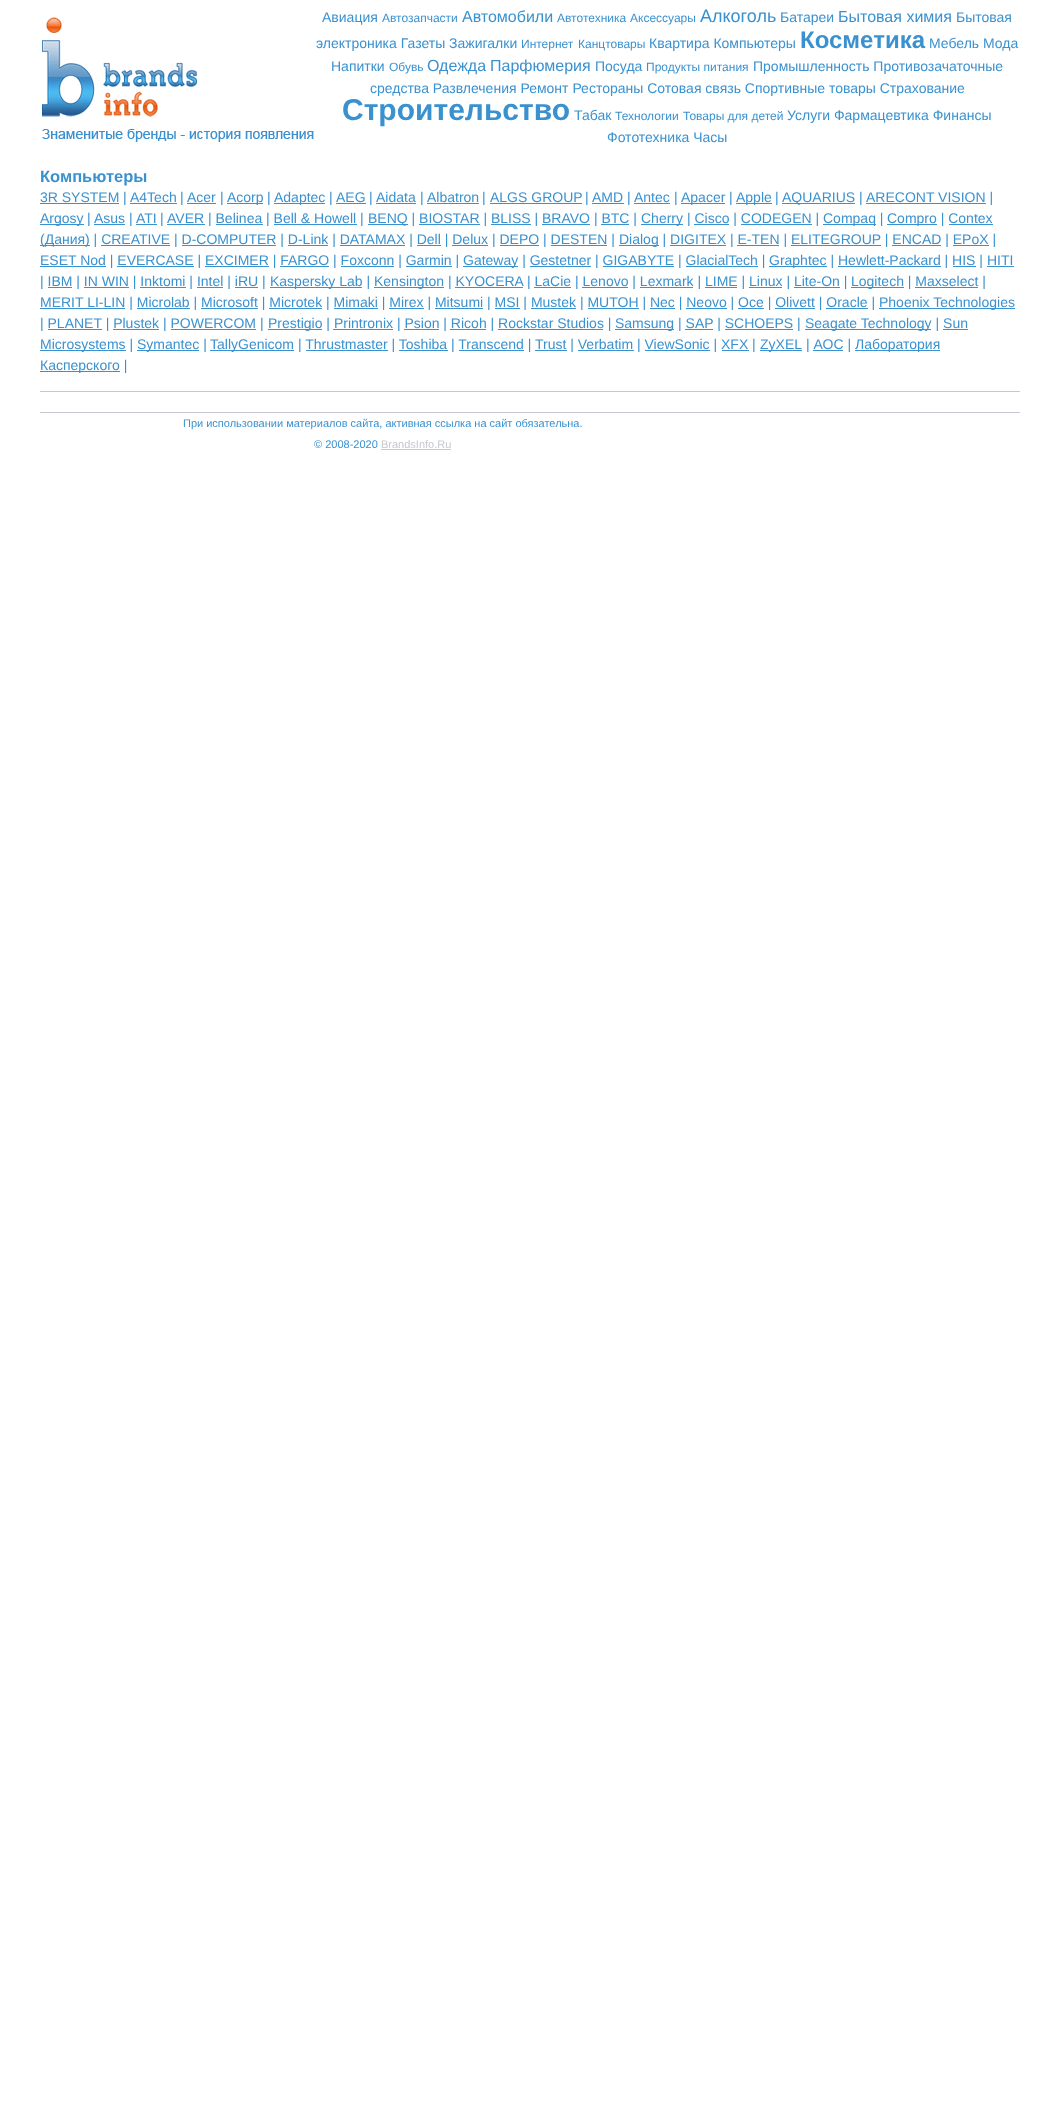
<svg xmlns="http://www.w3.org/2000/svg" width="1060" height="2108" viewBox="0 0 1060 2108">
  <rect width="100%" height="100%" fill="#fff"/>
  <image x="42" y="17" width="272" height="125" href="img/1.png"/>
  <path d="M40 203h79v1H40z" fill="#3a91cf"/>
  <path d="M130 203h47v1H130z" fill="#3a91cf"/>
  <path d="M187 203h29v1H187z" fill="#3a91cf"/>
  <path d="M227 203h36v1H227z" fill="#3a91cf"/>
  <path d="M274 203h51v1H274z" fill="#3a91cf"/>
  <path d="M336 203h30v1H336z" fill="#3a91cf"/>
  <path d="M376 203h40v1H376z" fill="#3a91cf"/>
  <path d="M427 203h52v1H427z" fill="#3a91cf"/>
  <path d="M490 203h92v1H490z" fill="#3a91cf"/>
  <path d="M592 203h32v1H592z" fill="#3a91cf"/>
  <path d="M634 203h36v1H634z" fill="#3a91cf"/>
  <path d="M681 203h44v1H681z" fill="#3a91cf"/>
  <path d="M736 203h36v1H736z" fill="#3a91cf"/>
  <path d="M782 203h73v1H782z" fill="#3a91cf"/>
  <path d="M866 203h120v1H866z" fill="#3a91cf"/>
  <path d="M40 224h44v1H40z" fill="#3a91cf"/>
  <path d="M94 224h31v1H94z" fill="#3a91cf"/>
  <path d="M136 224h21v1H136z" fill="#3a91cf"/>
  <path d="M167 224h38v1H167z" fill="#3a91cf"/>
  <path d="M368 224h40v1H368z" fill="#3a91cf"/>
  <path d="M641 224h42v1H641z" fill="#3a91cf"/>
  <path d="M823 224h53v1H823z" fill="#3a91cf"/>
  <path d="M887 224h50v1H887z" fill="#3a91cf"/>
  <path d="M216 224h47v1H216z" fill="#3a91cf"/>
  <path d="M274 224h83v1H274z" fill="#3a91cf"/>
  <path d="M419 224h61v1H419z" fill="#3a91cf"/>
  <path d="M491 224h40v1H491z" fill="#3a91cf"/>
  <path d="M542 224h48v1H542z" fill="#3a91cf"/>
  <path d="M601 224h28v1H601z" fill="#3a91cf"/>
  <path d="M694 224h35v1H694z" fill="#3a91cf"/>
  <path d="M741 224h71v1H741z" fill="#3a91cf"/>
  <path d="M949 224h44v1H949z" fill="#3a91cf"/>
  <path d="M40 245h50v1H40z" fill="#3a91cf"/>
  <path d="M619 245h40v1H619z" fill="#3a91cf"/>
  <path d="M101 245h69v1H101z" fill="#3a91cf"/>
  <path d="M182 245h94v1H182z" fill="#3a91cf"/>
  <path d="M288 245h40v1H288z" fill="#3a91cf"/>
  <path d="M340 245h65v1H340z" fill="#3a91cf"/>
  <path d="M417 245h24v1H417z" fill="#3a91cf"/>
  <path d="M452 245h36v1H452z" fill="#3a91cf"/>
  <path d="M500 245h39v1H500z" fill="#3a91cf"/>
  <path d="M551 245h56v1H551z" fill="#3a91cf"/>
  <path d="M670 245h56v1H670z" fill="#3a91cf"/>
  <path d="M737 245h42v1H737z" fill="#3a91cf"/>
  <path d="M791 245h90v1H791z" fill="#3a91cf"/>
  <path d="M892 245h49v1H892z" fill="#3a91cf"/>
  <path d="M953 245h36v1H953z" fill="#3a91cf"/>
  <path d="M40 266h66v1H40z" fill="#3a91cf"/>
  <path d="M463 266h55v1H463z" fill="#3a91cf"/>
  <path d="M769 266h58v1H769z" fill="#3a91cf"/>
  <path d="M117 266h77v1H117z" fill="#3a91cf"/>
  <path d="M205 266h64v1H205z" fill="#3a91cf"/>
  <path d="M280 266h49v1H280z" fill="#3a91cf"/>
  <path d="M341 266h53v1H341z" fill="#3a91cf"/>
  <path d="M406 266h46v1H406z" fill="#3a91cf"/>
  <path d="M530 266h61v1H530z" fill="#3a91cf"/>
  <path d="M603 266h71v1H603z" fill="#3a91cf"/>
  <path d="M686 266h72v1H686z" fill="#3a91cf"/>
  <path d="M838 266h103v1H838z" fill="#3a91cf"/>
  <path d="M953 266h23v1H953z" fill="#3a91cf"/>
  <path d="M987 266h27v1H987z" fill="#3a91cf"/>
  <path d="M270 287h92v1H270z" fill="#3a91cf"/>
  <path d="M374 287h70v1H374z" fill="#3a91cf"/>
  <path d="M851 287h53v1H851z" fill="#3a91cf"/>
  <path d="M48 287h24v1H48z" fill="#3a91cf"/>
  <path d="M84 287h45v1H84z" fill="#3a91cf"/>
  <path d="M140 287h46v1H140z" fill="#3a91cf"/>
  <path d="M197 287h26v1H197z" fill="#3a91cf"/>
  <path d="M235 287h23v1H235z" fill="#3a91cf"/>
  <path d="M455 287h68v1H455z" fill="#3a91cf"/>
  <path d="M534 287h37v1H534z" fill="#3a91cf"/>
  <path d="M582 287h46v1H582z" fill="#3a91cf"/>
  <path d="M640 287h53v1H640z" fill="#3a91cf"/>
  <path d="M705 287h32v1H705z" fill="#3a91cf"/>
  <path d="M749 287h33v1H749z" fill="#3a91cf"/>
  <path d="M794 287h46v1H794z" fill="#3a91cf"/>
  <path d="M915 287h63v1H915z" fill="#3a91cf"/>
  <path d="M40 308h85v1H40z" fill="#3a91cf"/>
  <path d="M879 308h136v1H879z" fill="#3a91cf"/>
  <path d="M137 308h53v1H137z" fill="#3a91cf"/>
  <path d="M201 308h57v1H201z" fill="#3a91cf"/>
  <path d="M269 308h53v1H269z" fill="#3a91cf"/>
  <path d="M334 308h44v1H334z" fill="#3a91cf"/>
  <path d="M389 308h35v1H389z" fill="#3a91cf"/>
  <path d="M435 308h48v1H435z" fill="#3a91cf"/>
  <path d="M495 308h25v1H495z" fill="#3a91cf"/>
  <path d="M531 308h45v1H531z" fill="#3a91cf"/>
  <path d="M588 308h51v1H588z" fill="#3a91cf"/>
  <path d="M650 308h25v1H650z" fill="#3a91cf"/>
  <path d="M686 308h41v1H686z" fill="#3a91cf"/>
  <path d="M738 308h26v1H738z" fill="#3a91cf"/>
  <path d="M775 308h40v1H775z" fill="#3a91cf"/>
  <path d="M826 308h42v1H826z" fill="#3a91cf"/>
  <path d="M268 329h54v1H268z" fill="#3a91cf"/>
  <path d="M615 329h59v1H615z" fill="#3a91cf"/>
  <path d="M805 329h126v1H805z" fill="#3a91cf"/>
  <path d="M48 329h54v1H48z" fill="#3a91cf"/>
  <path d="M113 329h46v1H113z" fill="#3a91cf"/>
  <path d="M171 329h85v1H171z" fill="#3a91cf"/>
  <path d="M333 329h60v1H333z" fill="#3a91cf"/>
  <path d="M404 329h35v1H404z" fill="#3a91cf"/>
  <path d="M450 329h36v1H450z" fill="#3a91cf"/>
  <path d="M498 329h105v1H498z" fill="#3a91cf"/>
  <path d="M685 329h28v1H685z" fill="#3a91cf"/>
  <path d="M725 329h68v1H725z" fill="#3a91cf"/>
  <path d="M943 329h25v1H943z" fill="#3a91cf"/>
  <path d="M40 350h86v1H40z" fill="#3a91cf"/>
  <path d="M137 350h62v1H137z" fill="#3a91cf"/>
  <path d="M210 350h84v1H210z" fill="#3a91cf"/>
  <path d="M760 350h42v1H760z" fill="#3a91cf"/>
  <path d="M855 350h85v1H855z" fill="#3a91cf"/>
  <path d="M306 350h82v1H306z" fill="#3a91cf"/>
  <path d="M399 350h49v1H399z" fill="#3a91cf"/>
  <path d="M459 350h65v1H459z" fill="#3a91cf"/>
  <path d="M535 350h32v1H535z" fill="#3a91cf"/>
  <path d="M578 350h56v1H578z" fill="#3a91cf"/>
  <path d="M645 350h65v1H645z" fill="#3a91cf"/>
  <path d="M722 350h27v1H722z" fill="#3a91cf"/>
  <path d="M813 350h30v1H813z" fill="#3a91cf"/>
  <path d="M40 371h80v1H40z" fill="#3a91cf"/>
  <path d="M40 391h980v1H40z" fill="#c5c8d0"/>
  <path d="M40 412h980v1H40z" fill="#c5c8d0"/>
  <path d="M381 449h70v1H381z" fill="#c5c8d0"/>
  <text x="322" y="22" font-family="Liberation Sans" font-size="14" fill="#3a91cf">Авиация</text>
  <text x="382" y="22" font-family="Liberation Sans" font-size="12" fill="#3a91cf">Автозапчасти</text>
  <text x="462" y="22" font-family="Liberation Sans" font-size="16" fill="#3a91cf">Автомобили</text>
  <g font-family="Liberation Sans" font-size="12" fill="#3a91cf">
    <text x="557" y="22">Автотехника</text>
    <text x="630" y="22">Аксессуары</text>
  </g>
  <text x="700" y="22" font-family="Liberation Sans" font-size="18" fill="#3a91cf">Алкоголь</text>
  <text x="780" y="22" font-family="Liberation Sans" font-size="14" fill="#3a91cf">Батареи</text>
  <text x="838" y="22" font-family="Liberation Sans" font-size="16" fill="#3a91cf">Бытовая химия</text>
  <g font-family="Liberation Sans" font-size="14" fill="#3a91cf">
    <text x="956" y="22">Бытовая</text>
    <text x="316" y="48">электроника Газеты Зажигалки</text>
  </g>
  <g font-family="Liberation Sans" font-size="12" fill="#3a91cf">
    <text x="521" y="48">Интернет</text>
    <text x="578" y="48">Канцтовары</text>
  </g>
  <text x="649" y="48" font-family="Liberation Sans" font-size="14" fill="#3a91cf">Квартира Компьютеры</text>
  <text x="800" y="48" font-family="Liberation Sans" font-size="24" font-weight="bold" fill="#3a91cf">Косметика</text>
  <g font-family="Liberation Sans" font-size="14" fill="#3a91cf">
    <text x="929" y="48">Мебель Мода</text>
    <text x="331" y="71">Напитки</text>
  </g>
  <text x="389" y="71" font-family="Liberation Sans" font-size="12" fill="#3a91cf">Обувь</text>
  <g font-family="Liberation Sans" font-size="16" fill="#3a91cf">
    <text x="427" y="71">Одежда</text>
    <text x="490" y="71">Парфюмерия</text>
  </g>
  <text x="595" y="71" font-family="Liberation Sans" font-size="14" fill="#3a91cf">Посуда</text>
  <text x="646" y="71" font-family="Liberation Sans" font-size="12" fill="#3a91cf">Продукты питания</text>
  <g font-family="Liberation Sans" font-size="14" fill="#3a91cf">
    <text x="753" y="71">Промышленность Противозачаточные</text>
    <text x="370" y="93">средства Развлечения Ремонт Рестораны Сотовая связь Спортивные товары Страхование</text>
  </g>
  <text x="342" y="120" font-family="Liberation Sans" font-size="30" font-weight="bold" fill="#3a91cf">Строительство</text>
  <text x="574" y="120" font-family="Liberation Sans" font-size="14" fill="#3a91cf">Табак</text>
  <g font-family="Liberation Sans" font-size="12" fill="#3a91cf">
    <text x="615" y="120">Технологии</text>
    <text x="683" y="120">Товары для детей</text>
  </g>
  <g font-family="Liberation Sans" font-size="14" fill="#3a91cf">
    <text x="787" y="120">Услуги Фармацевтика Финансы</text>
    <text x="607" y="142">Фототехника Часы</text>
  </g>
  <text x="40" y="182" font-family="Liberation Sans" font-size="16.5" font-weight="bold" fill="#3a91cf">Компьютеры</text>
  <g font-family="Liberation Sans" font-size="14" fill="#3a91cf">
    <text x="40" y="202">3R SYSTEM</text>
    <text x="123" y="202">|</text>
    <text x="130" y="202">A4Tech</text>
    <text x="180" y="202">|</text>
    <text x="187" y="202">Acer</text>
    <text x="220" y="202">|</text>
    <text x="227" y="202">Acorp</text>
    <text x="267" y="202">|</text>
    <text x="274" y="202">Adaptec</text>
    <text x="329" y="202">|</text>
    <text x="336" y="202">AEG</text>
    <text x="369" y="202">|</text>
    <text x="376" y="202">Aidata</text>
    <text x="420" y="202">|</text>
    <text x="427" y="202">Albatron</text>
    <text x="482" y="202">|</text>
    <text x="490" y="202">ALGS GROUP</text>
    <text x="585" y="202">|</text>
    <text x="592" y="202">AMD</text>
    <text x="627" y="202">|</text>
    <text x="634" y="202">Antec</text>
    <text x="674" y="202">|</text>
    <text x="681" y="202">Apacer</text>
    <text x="729" y="202">|</text>
    <text x="736" y="202">Apple</text>
    <text x="775" y="202">|</text>
    <text x="782" y="202">AQUARIUS</text>
    <text x="859" y="202">|</text>
    <text x="866" y="202">ARECONT VISION |</text>
    <text x="40" y="223">Argosy</text>
    <text x="87" y="223">|</text>
    <text x="94" y="223">Asus</text>
    <text x="129" y="223">|</text>
    <text x="136" y="223">ATI</text>
    <text x="160" y="223">|</text>
    <text x="167" y="223">AVER | Belinea | Bell &amp; Howell |</text>
    <text x="368" y="223">BENQ | BIOSTAR | BLISS | BRAVO | BTC |</text>
    <text x="641" y="223">Cherry | Cisco | CODEGEN |</text>
    <text x="823" y="223">Compaq |</text>
    <text x="887" y="223">Compro | Contex</text>
    <text x="40" y="244">(Дания) | CREATIVE | D-COMPUTER | D-Link | DATAMAX | Dell | Delux | DEPO | DESTEN |</text>
    <text x="619" y="244">Dialog | DIGITEX | E-TEN | ELITEGROUP | ENCAD | EPoX |</text>
    <text x="40" y="265">ESET Nod | EVERCASE | EXCIMER | FARGO | Foxconn | Garmin |</text>
    <text x="463" y="265">Gateway | Gestetner | GIGABYTE | GlacialTech |</text>
    <text x="769" y="265">Graphtec | Hewlett-Packard | HIS | HITI</text>
    <text x="40" y="286">| IBM | IN WIN | Inktomi | Intel | iRU |</text>
    <text x="270" y="286">Kaspersky Lab |</text>
    <text x="374" y="286">Kensington | KYOCERA</text>
    <text x="527" y="286">| LaCie | Lenovo | Lexmark | LIME | Linux | Lite-On |</text>
    <text x="851" y="286">Logitech | Maxsеlесt |</text>
    <text x="40" y="307">MERIT LI-LIN | Microlab | Microsoft | Microtek | Mimaki | Mirex | Mitsumi | MSI | Mustek | MUTOH | Nec | Neovo | Oce | Olivett | Oracle |</text>
    <text x="879" y="307">Phoenix Technologies</text>
    <text x="40" y="328">| PLANET | Plustek | POWERCOM |</text>
    <text x="268" y="328">Prestigio | Printronix | Psion | Ricoh | Rockstar Studios |</text>
    <text x="615" y="328">Samsung | SAP | SCHOEPS |</text>
    <text x="805" y="328">Seagate Technology | Sun</text>
    <text x="40" y="349">Microsystems |</text>
    <text x="137" y="349">Symantec |</text>
    <text x="210" y="349">TallyGenicom | Thrustmaster | Toshiba | Transcend | Trust | Verbatim | ViewSonic | XFX |</text>
    <text x="760" y="349">ZyXEL</text>
    <text x="806" y="349">| АОС |</text>
    <text x="855" y="349">Лаборатория</text>
    <text x="40" y="370">Касперского |</text>
  </g>
  <g font-family="Liberation Sans" font-size="11" fill="#3a91cf">
    <text x="183" y="427">При использовании материалов сайта, активная ссылка на сайт обязательна.</text>
    <text x="314" y="448">© 2008-2020</text>
  </g>
  <text x="381" y="448" font-family="Liberation Sans" font-size="11" fill="#c5c8d0">BrandsInfo.Ru</text>
</svg>
